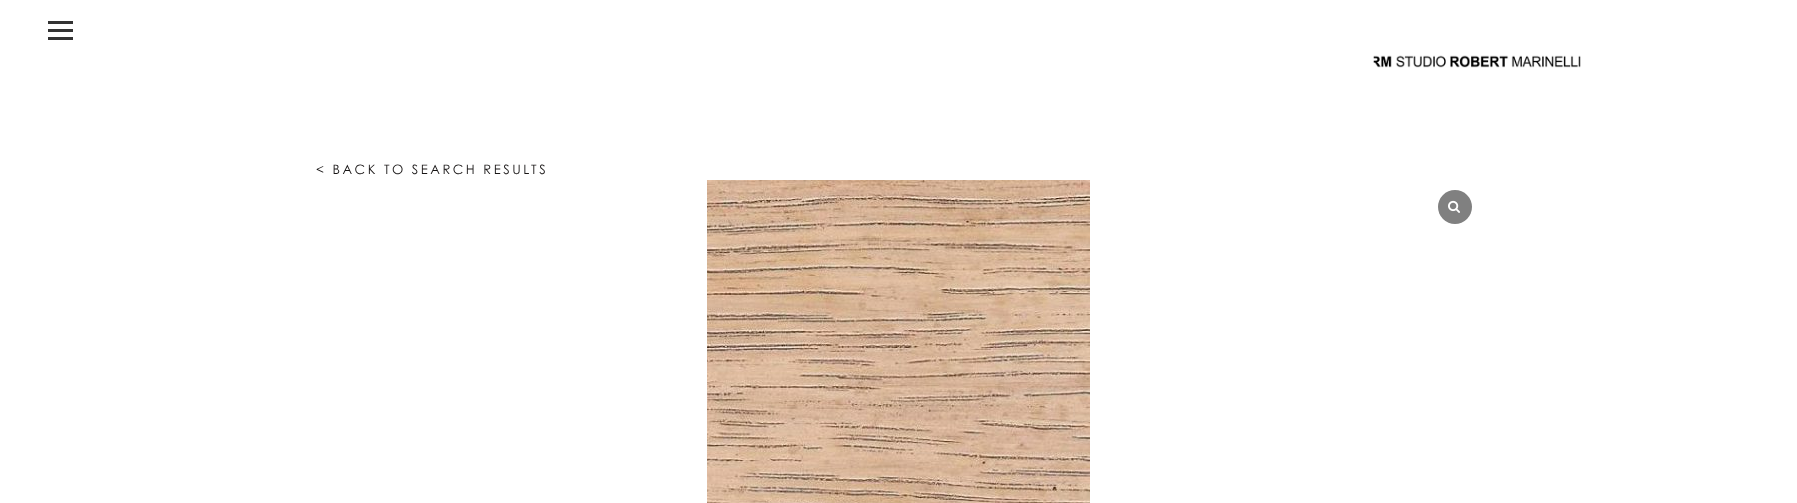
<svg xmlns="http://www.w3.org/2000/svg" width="1797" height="503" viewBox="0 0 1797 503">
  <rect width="100%" height="100%" fill="#fff"/>
  <path d="M48 21h25v3H48z" fill="#333"/>
  <path d="M48 29h25v3H48z" fill="#333"/>
  <path d="M48 37h25v3H48z" fill="#333"/>
  <image x="1373" y="55" width="208" height="13" href="img/1.png"/>
  <image x="707" y="180" width="383" height="323" href="img/2.png"/>
  <circle cx="1455" cy="207" r="17" fill="#808080"/>
  <image x="1448" y="200" width="12" height="13" href="img/3.png"/>
  <text x="316" y="174" font-family="Century Gothic" font-size="13" letter-spacing="2.5" fill="#191616">&lt; BACK TO SEARCH RESULTS</text>
</svg>
